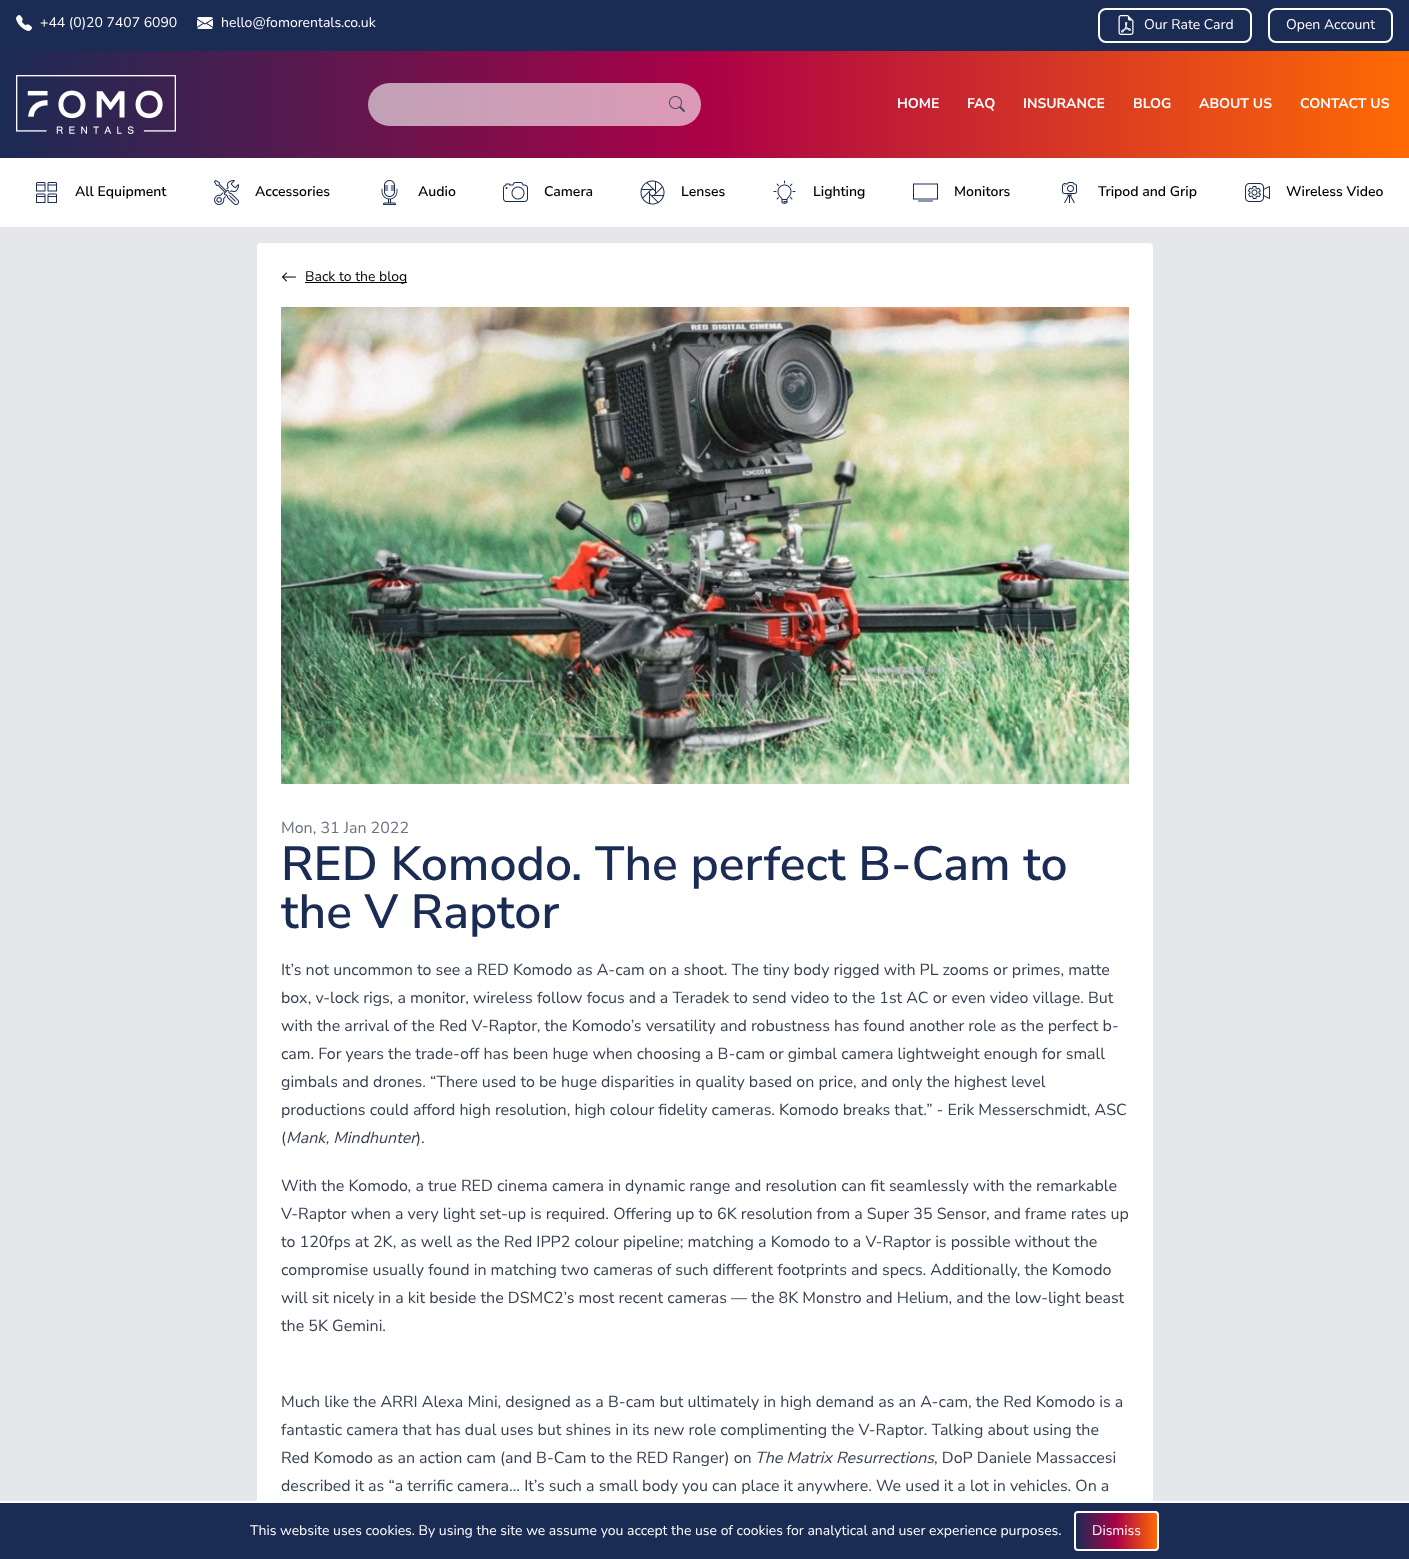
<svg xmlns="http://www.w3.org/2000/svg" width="1409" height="1559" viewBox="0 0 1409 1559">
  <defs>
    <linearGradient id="g1" gradientUnits="userSpaceOnUse" x1="0" y1="105" x2="1409" y2="104"><stop offset="0" stop-color="#1a2b54"/><stop offset="0.5" stop-color="#ab0147"/><stop offset="1" stop-color="#ff6a04"/></linearGradient>
    <clipPath id="clip1"><rect x="1074" y="1511" width="85" height="40" rx="4"/></clipPath>
    <linearGradient id="g2" gradientUnits="userSpaceOnUse" x1="1076" y1="1531" x2="1157" y2="1531"><stop offset="0" stop-color="#1a2b54"/><stop offset="0.5" stop-color="#ab0147"/><stop offset="1" stop-color="#ff6a04"/></linearGradient>
  </defs>
  <rect width="100%" height="100%" fill="#e5e7eb"/>
  <path d="M0 0h1409v51H0z" fill="#1a2b54"/>
  <image x="16" y="15" width="16" height="16" href="img/1.png"/>
  <image x="197" y="17" width="16" height="12" href="img/2.png"/>
  <rect x="1099" y="9" width="152" height="33" rx="7" fill="none" stroke="#fff" stroke-width="2"/>
  <image x="1118" y="15" width="16" height="20" href="img/3.png"/>
  <rect x="1269" y="9" width="123" height="33" rx="7" fill="none" stroke="#fff" stroke-width="2"/>
  <path d="M0 51h1409v107H0z" fill="url(#g1)"/>
  <image x="16" y="75" width="160" height="59" href="img/4.png"/>
  <rect x="368" y="83" width="333" height="43" rx="21.5" fill="#ffffff99"/>
  <image x="669" y="96" width="16" height="16" href="img/5.png"/>
  <path d="M0 158h1409v69H0z" fill="#fff"/>
  <image x="36" y="182" width="21" height="21" href="img/6.png"/>
  <image x="214" y="180" width="25" height="25" href="img/7.png"/>
  <image x="381" y="180" width="17" height="25" href="img/8.png"/>
  <image x="503" y="182" width="25" height="20" href="img/9.png"/>
  <image x="640" y="180" width="25" height="25" href="img/10.png"/>
  <image x="773" y="180" width="23" height="24" href="img/11.png"/>
  <image x="913" y="183" width="25" height="19" href="img/12.png"/>
  <image x="1062" y="182" width="15" height="21" href="img/13.png"/>
  <image x="1245" y="183" width="25" height="19" href="img/14.png"/>
  <rect x="257" y="243" width="896" height="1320" rx="4" fill="#fff"/>
  <image x="282" y="272" width="14" height="10" href="img/15.png"/>
  <path d="M305 282h102v1H305z" fill="#000"/>
  <image x="281" y="307" width="848" height="477" href="img/16.png"/>
  <path d="M0 1503h1409v56H0z" fill="#1a2b54"/>
  <path d="M0 1501h1409v2H0z" fill="#fff"/>
  <g clip-path="url(#clip1)">
    <path d="M1076 1511h81v40H1076z" fill="url(#g2)"/>
  </g>
  <rect x="1075" y="1512" width="83" height="38" rx="3" fill="none" stroke="#fff" stroke-width="2"/>
  <g font-family="Nunito Sans" font-size="14" fill="#fff">
    <text x="40" y="27">+44 (0)20 7407 6090</text>
    <text x="221" y="27">hello@fomorentals.co.uk</text>
    <text x="1144" y="29">Our Rate Card</text>
    <text x="1286" y="29">Open Account</text>
  </g>
  <g font-family="Nunito Sans" font-size="14" font-weight="bold" fill="#fff">
    <text x="897" y="108">HOME</text>
    <text x="967" y="108">FAQ</text>
    <text x="1023" y="108">INSURANCE</text>
    <text x="1133" y="108">BLOG</text>
    <text x="1199" y="108">ABOUT US</text>
    <text x="1300" y="108">CONTACT US</text>
  </g>
  <g font-family="Nunito Sans" font-size="14" font-weight="600" fill="#000">
    <text x="75" y="196">All Equipment</text>
    <text x="255" y="196">Accessories</text>
    <text x="418" y="196">Audio</text>
    <text x="544" y="196">Camera</text>
    <text x="681" y="196">Lenses</text>
    <text x="813" y="196">Lighting</text>
    <text x="954" y="196">Monitors</text>
    <text x="1098" y="196">Tripod and Grip</text>
    <text x="1286" y="196">Wireless Video</text>
  </g>
  <text x="305" y="281" font-family="Nunito Sans" font-size="14" fill="#000">Back to the blog</text>
  <text x="281" y="833" font-family="Nunito Sans" font-size="16" fill="#6b7280">Mon, 31 Jan 2022</text>
  <g font-family="Nunito Sans" font-size="48" font-weight="600" fill="#1a2b54">
    <text x="281" y="880">RED Komodo. The perfect B-Cam to</text>
    <text x="281" y="928">the V Raptor</text>
  </g>
  <g font-family="Nunito Sans" font-size="16" fill="#374151">
    <text x="281" y="975">It’s not uncommon to see a RED Komodo as A-cam on a shoot. The tiny body rigged with PL zooms or primes, matte</text>
    <text x="281" y="1003">box, v-lock rigs, a monitor, wireless follow focus and a Teradek to send video to the 1st AC or even video village. But</text>
    <text x="281" y="1031">with the arrival of the Red V-Raptor, the Komodo’s versatility and robustness has found another role as the perfect b-</text>
    <text x="281" y="1059">cam. For years the trade-off has been huge when choosing a B-cam or gimbal camera lightweight enough for small</text>
    <text x="281" y="1087">gimbals and drones. “There used to be huge disparities in quality based on price, and only the highest level</text>
    <text x="281" y="1115">productions could afford high resolution, high colour fidelity cameras. Komodo breaks that.” - Erik Messerschmidt, ASC</text>
    <text x="281" y="1143">(</text>
  </g>
  <text x="286" y="1143" font-family="Nunito Sans" font-size="16" font-style="italic" fill="#374151">Mank, Mindhunter</text>
  <g font-family="Nunito Sans" font-size="16" fill="#374151">
    <text x="416" y="1143">).</text>
    <text x="281" y="1191">With the Komodo, a true RED cinema camera in dynamic range and resolution can fit seamlessly with the remarkable</text>
    <text x="281" y="1219">V-Raptor when a very light set-up is required. Offering up to 6K resolution from a Super 35 Sensor, and frame rates up</text>
    <text x="281" y="1247">to 120fps at 2K, as well as the Red IPP2 colour pipeline; matching a Komodo to a V-Raptor is possible without the</text>
    <text x="281" y="1275">compromise usually found in matching two cameras of such different footprints and specs. Additionally, the Komodo</text>
    <text x="281" y="1303">will sit nicely in a kit beside the DSMC2’s most recent cameras — the 8K Monstro and Helium, and the low-light beast</text>
    <text x="281" y="1331">the 5K Gemini.</text>
    <text x="281" y="1407">Much like the ARRI Alexa Mini, designed as a B-cam but ultimately in high demand as an A-cam, the Red Komodo is a</text>
    <text x="281" y="1435">fantastic camera that has dual uses but shines in its new role complimenting the V-Raptor. Talking about using the</text>
    <text x="281" y="1463">Red Komodo as an action cam (and B-Cam to the RED Ranger) on</text>
  </g>
  <text x="755" y="1463" font-family="Nunito Sans" font-size="16" font-style="italic" fill="#374151">The Matrix Resurrections</text>
  <g font-family="Nunito Sans" font-size="16" fill="#374151">
    <text x="934" y="1463">, DoP Daniele Massaccesi</text>
    <text x="281" y="1491">described it as “a terrific camera… It’s such a small body you can place it anywhere. We used it a lot in vehicles. On a</text>
  </g>
  <g font-family="Nunito Sans" font-size="14" fill="#fff">
    <text x="250" y="1535">This website uses cookies. By using the site we assume you accept the use of cookies for analytical and user experience purposes.</text>
    <text x="1092" y="1535">Dismiss</text>
  </g>
</svg>
